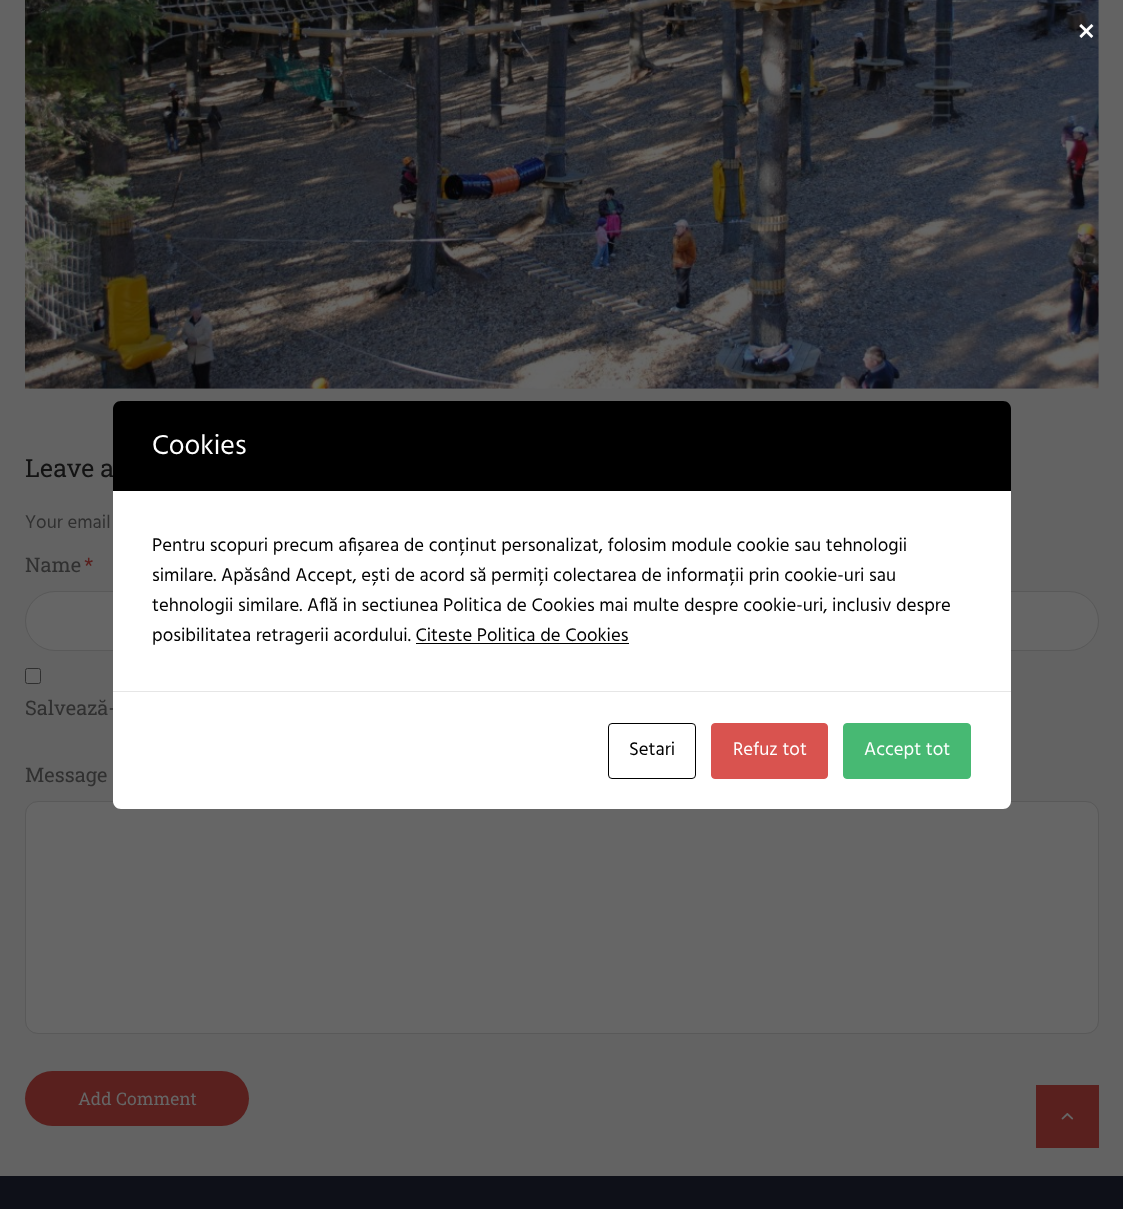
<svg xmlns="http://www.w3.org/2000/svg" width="1123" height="1209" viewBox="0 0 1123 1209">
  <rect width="100%" height="100%" fill="#636363"/>
  <image x="25" y="0" width="1074" height="389" href="img/1.png"/>
  <rect x="25.5" y="591.5" width="524" height="59" rx="29.5" fill="#666" stroke="#595959"/>
  <rect x="575.5" y="591.5" width="523" height="59" rx="29.5" fill="#666" stroke="#595959"/>
  <rect x="25.5" y="668.5" width="15" height="15" rx="2" fill="#666" stroke="#2f2f2f"/>
  <rect x="25.5" y="801.5" width="1073" height="232" rx="12.5" fill="#666" stroke="#595959"/>
  <rect x="25" y="1071" width="224" height="55" rx="27.5" fill="#59201e"/>
  <path d="M1036 1085h63v63H1036z" fill="#59201e"/>
  <image x="1061" y="1113" width="13" height="7" href="img/2.png"/>
  <path d="M0 1176h1123v33H0z" fill="#0e1018"/>
  <path d="M113 491h898v200H113z" fill="#fff"/>
  <path d="M416 643h213v1H416z" fill="#000"/>
  <text x="25" y="477" font-family="Roboto Slab" font-size="25" fill="#131313">Leave a</text>
  <text x="25" y="528" font-family="Hind" font-size="18.75" fill="#303030">Your email</text>
  <text x="25" y="572" font-family="Roboto Slab" font-size="20" fill="#303030">Name</text>
  <text x="84" y="572" font-family="Roboto Slab" font-size="20" fill="#59201e">*</text>
  <g font-family="Roboto Slab" font-size="20" fill="#303030">
    <text x="25" y="715">Salvează-</text>
    <text x="25" y="782">Message</text>
  </g>
  <text x="78" y="1105" font-family="Roboto Slab" font-size="17.5" fill="#666">Add Comment</text>
  <text x="1077" y="44" font-family="Hind" font-size="38" fill="#fff">×</text>
  <path d="M121 401H1003C1007.5 401 1011 404.5 1011 409V491H113V409C113 404.5 116.5 401 121 401Z" fill="#000"/>
  <text x="152" y="454" font-family="Hind" font-size="28" fill="#fff">Cookies</text>
  <g font-family="Hind" font-size="18.75" fill="#000">
    <text x="152" y="551">Pentru scopuri precum afișarea de conținut personalizat, folosim module cookie sau tehnologii</text>
    <text x="152" y="581">similare. Apăsând Accept, ești de acord să permiți colectarea de informații prin cookie-uri sau</text>
    <text x="152" y="611">tehnologii similare. Află in sectiunea Politica de Cookies mai multe despre cookie-uri, inclusiv despre</text>
    <text x="152" y="641">posibilitatea retragerii acordului. Citeste Politica de Cookies</text>
  </g>
  <path d="M113 691H1011V801C1011 805.5 1007.5 809 1003 809H121C116.5 809 113 805.5 113 801Z" fill="#fff"/>
  <path d="M113 691h898v1H113z" fill="#e6e6e6"/>
  <rect x="608.5" y="723.5" width="87" height="55" rx="3.5" fill="none" stroke="#000"/>
  <text x="629" y="755" font-family="Hind" font-size="18.75" fill="#000">Setari</text>
  <rect x="711.5" y="723.5" width="116" height="55" rx="3.5" fill="#d9534f" stroke="#d9534f"/>
  <text x="733" y="755" font-family="Hind" font-size="18.75" fill="#fff">Refuz tot</text>
  <rect x="843.5" y="723.5" width="127" height="55" rx="3.5" fill="#47b973" stroke="#47b973"/>
  <text x="864" y="755" font-family="Hind" font-size="18.75" fill="#fff">Accept tot</text>
</svg>
